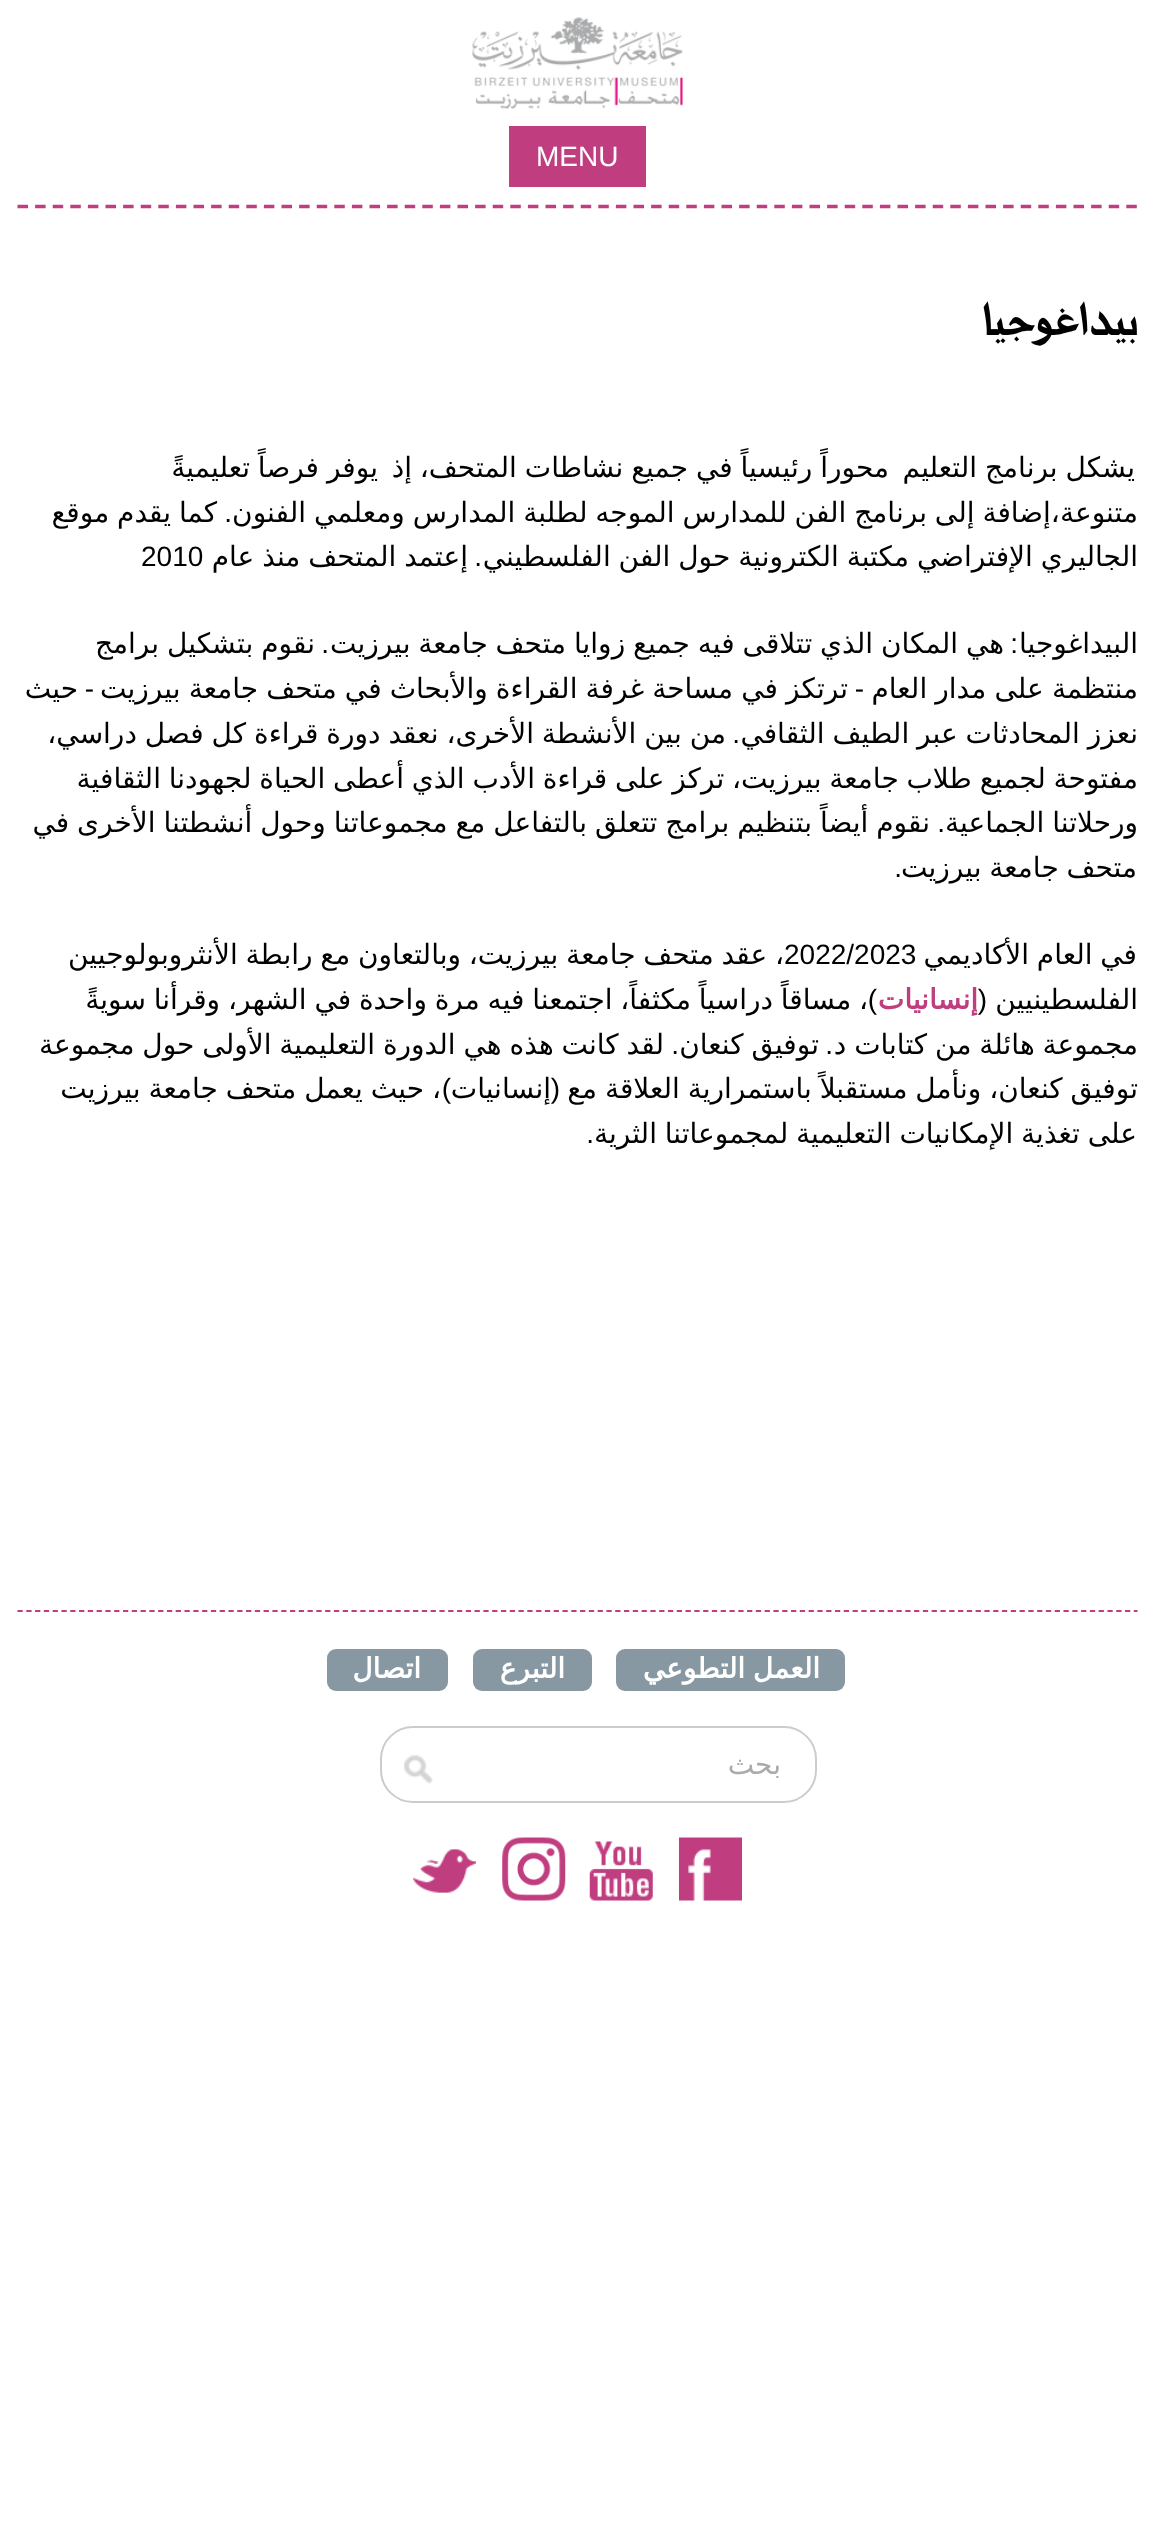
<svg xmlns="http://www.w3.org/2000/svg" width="1155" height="2539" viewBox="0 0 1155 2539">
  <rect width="100%" height="100%" fill="#fff"/>
  <path d="M17.5 206.5H1137.5" fill="none" stroke="#c03d7f" stroke-width="3.5" stroke-dasharray="10.5 7.1"/>
  <image x="472" y="17" width="211" height="92" href="img/1.png"/>
  <path d="M509 126h137v61H509z" fill="#c03d7f"/>
  <path d="M17.5 1611H1137.5" fill="none" stroke="#c03d7f" stroke-width="1.8" stroke-dasharray="5.25 3.54"/>
  <rect x="616" y="1649" width="229" height="42" rx="9" fill="#8898a3"/>
  <rect x="473" y="1649" width="119" height="42" rx="9" fill="#8898a3"/>
  <rect x="327" y="1649" width="121" height="42" rx="9" fill="#8898a3"/>
  <rect x="381" y="1727" width="435" height="75" rx="32" fill="none" stroke="#ccc" stroke-width="2"/>
  <image x="404" y="1755" width="29" height="29" href="img/2.png"/>
  <image x="679" y="1837" width="63" height="64" href="img/3.png"/>
  <image x="589" y="1841" width="64" height="60" href="img/4.png"/>
  <image x="502" y="1837" width="64" height="64" href="img/5.png"/>
  <image x="413" y="1849" width="63" height="44" href="img/6.png"/>
  <text x="536" y="166" font-family="Liberation Sans" font-size="28" fill="#fff">MENU</text>
  <text x="1137" y="335" font-family="'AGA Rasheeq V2'" font-size="70" font-weight="bold" direction="rtl" fill="#000">بيداغوجيا</text>
  <g font-family="DejaVu Sans" font-size="28" direction="rtl" fill="#000">
    <text x="1135" y="477" word-spacing="-1">يشكل برنامج التعليم</text>
    <text x="889" y="477" word-spacing="-1">محوراً رئيسياً في جميع نشاطات المتحف، إذ</text>
    <text x="378" y="477" word-spacing="-1">يوفر فرصاً تعليميةً</text>
    <text x="1138" y="522" word-spacing="-1">متنوعة،إضافة إلى برنامج الفن للمدارس الموجه لطلبة المدارس ومعلمي الفنون</text>
  </g>
  <text x="232" y="522" font-family="Liberation Sans" font-size="28" direction="rtl" fill="#000">.</text>
  <g font-family="DejaVu Sans" font-size="28" direction="rtl" fill="#000">
    <text x="217" y="522" word-spacing="-1">كما يقدم موقع</text>
    <text x="1138" y="566" word-spacing="-1">الجاليري الإفتراضي مكتبة الكترونية حول الفن الفلسطيني</text>
  </g>
  <text x="482" y="566" font-family="Liberation Sans" font-size="28" direction="rtl" fill="#000">.</text>
  <text x="468" y="566" word-spacing="-1" font-family="DejaVu Sans" font-size="28" direction="rtl" fill="#000">إعتمد المتحف منذ عام</text>
  <text x="141" y="566" font-family="Liberation Sans" font-size="28" fill="#000">2010</text>
  <text x="1138" y="653" font-family="DejaVu Sans" font-size="28" direction="rtl" fill="#000">البيداغوجيا</text>
  <text x="1018" y="653" font-family="Liberation Sans" font-size="28" direction="rtl" fill="#000">:</text>
  <text x="1004" y="653" word-spacing="-1" font-family="DejaVu Sans" font-size="28" direction="rtl" fill="#000">هي المكان الذي تتلاقى فيه جميع زوايا متحف جامعة بيرزيت</text>
  <text x="329" y="653" font-family="Liberation Sans" font-size="28" direction="rtl" fill="#000">.</text>
  <g font-family="DejaVu Sans" font-size="28" direction="rtl" fill="#000">
    <text x="315" y="653" word-spacing="-1">نقوم بتشكيل برامج</text>
    <text x="1138" y="698" word-spacing="-0.75">منتظمة على مدار العام</text>
  </g>
  <text x="864" y="698" font-family="Liberation Sans" font-size="28" direction="rtl" fill="#000">-</text>
  <text x="848" y="698" word-spacing="-0.75" font-family="DejaVu Sans" font-size="28" direction="rtl" fill="#000">ترتكز في مساحة غرفة القراءة والأبحاث في متحف جامعة بيرزيت</text>
  <text x="94" y="698" font-family="Liberation Sans" font-size="28" direction="rtl" fill="#000">-</text>
  <g font-family="DejaVu Sans" font-size="28" direction="rtl" fill="#000">
    <text x="78" y="698">حيث</text>
    <text x="1138" y="743" word-spacing="-1">نعزز المحادثات عبر الطيف الثقافي</text>
  </g>
  <text x="740" y="743" font-family="Liberation Sans" font-size="28" direction="rtl" fill="#000">.</text>
  <g font-family="DejaVu Sans" font-size="28" direction="rtl" fill="#000">
    <text x="726" y="743" word-spacing="-1">من بين الأنشطة الأخرى، نعقد دورة قراءة كل فصل دراسي،</text>
    <text x="1138" y="788" word-spacing="-1.1">مفتوحة لجميع طلاب جامعة بيرزيت، تركز على قراءة الأدب الذي أعطى الحياة لجهودنا الثقافية</text>
    <text x="1138" y="832" word-spacing="-1">ورحلاتنا الجماعية</text>
  </g>
  <text x="945" y="832" font-family="Liberation Sans" font-size="28" direction="rtl" fill="#000">.</text>
  <g font-family="DejaVu Sans" font-size="28" direction="rtl" fill="#000">
    <text x="930" y="832" word-spacing="-1">نقوم أيضاً بتنظيم برامج تتعلق بالتفاعل مع مجموعاتنا وحول أنشطتنا الأخرى في</text>
    <text x="1137" y="877" word-spacing="-1.1">متحف جامعة بيرزيت</text>
  </g>
  <text x="902" y="877" font-family="Liberation Sans" font-size="28" direction="rtl" fill="#000">.</text>
  <g font-family="DejaVu Sans" font-size="28" direction="rtl" fill="#000">
    <text x="1137" y="964" word-spacing="-1.1">في العام الأكاديمي</text>
    <text x="784" y="964" word-spacing="-1.1">، عقد متحف جامعة بيرزيت، وبالتعاون مع رابطة الأنثروبولوجيين</text>
  </g>
  <text x="784" y="964" font-family="Liberation Sans" font-size="28" fill="#000">2022/2023</text>
  <text x="1138" y="1009" font-family="DejaVu Sans" font-size="28" direction="rtl" fill="#000">الفلسطينيين</text>
  <text x="978" y="1009" font-family="DejaVu Sans" font-size="28" font-weight="bold" direction="rtl" fill="#c03d7f">إنسانيات</text>
  <text x="868" y="1009" word-spacing="-1.1" font-family="DejaVu Sans" font-size="28" direction="rtl" fill="#000">، مساقاً دراسياً مكثفاً، اجتمعنا فيه مرة واحدة في الشهر، وقرأنا سويةً</text>
  <g font-family="Liberation Sans" font-size="28" direction="rtl" fill="#000">
    <text x="987" y="1009">(</text>
    <text x="877" y="1009">)</text>
  </g>
  <text x="1138" y="1054" word-spacing="-1" font-family="DejaVu Sans" font-size="28" direction="rtl" fill="#000">مجموعة هائلة من كتابات د</text>
  <text x="833" y="1054" font-family="Liberation Sans" font-size="28" direction="rtl" fill="#000">.</text>
  <text x="819" y="1054" word-spacing="-1" font-family="DejaVu Sans" font-size="28" direction="rtl" fill="#000">توفيق كنعان</text>
  <text x="679" y="1054" font-family="Liberation Sans" font-size="28" direction="rtl" fill="#000">.</text>
  <g font-family="DejaVu Sans" font-size="28" direction="rtl" fill="#000">
    <text x="664" y="1054" word-spacing="-1">لقد كانت هذه هي الدورة التعليمية الأولى حول مجموعة</text>
    <text x="1138" y="1098" word-spacing="-1">توفيق كنعان، ونأمل مستقبلاً باستمرارية العلاقة مع</text>
    <text x="551" y="1098">إنسانيات</text>
    <text x="441" y="1098" word-spacing="-1">، حيث يعمل متحف جامعة بيرزيت</text>
  </g>
  <g font-family="Liberation Sans" font-size="28" direction="rtl" fill="#000">
    <text x="560" y="1098">(</text>
    <text x="451" y="1098">)</text>
  </g>
  <text x="1137" y="1143" word-spacing="-1.1" font-family="DejaVu Sans" font-size="28" direction="rtl" fill="#000">على تغذية الإمكانيات التعليمية لمجموعاتنا الثرية</text>
  <text x="594" y="1143" font-family="Liberation Sans" font-size="28" direction="rtl" fill="#000">.</text>
  <g font-family="DejaVu Sans" font-size="28" font-weight="bold" direction="rtl" fill="#fff">
    <text x="820" y="1678" word-spacing="-1.1">العمل التطوعي</text>
    <text x="565" y="1678">التبرع</text>
    <text x="421" y="1678">اتصال</text>
  </g>
  <text x="781" y="1774" font-family="DejaVu Sans" font-size="28" direction="rtl" fill="#aaa">بحث</text>
</svg>
